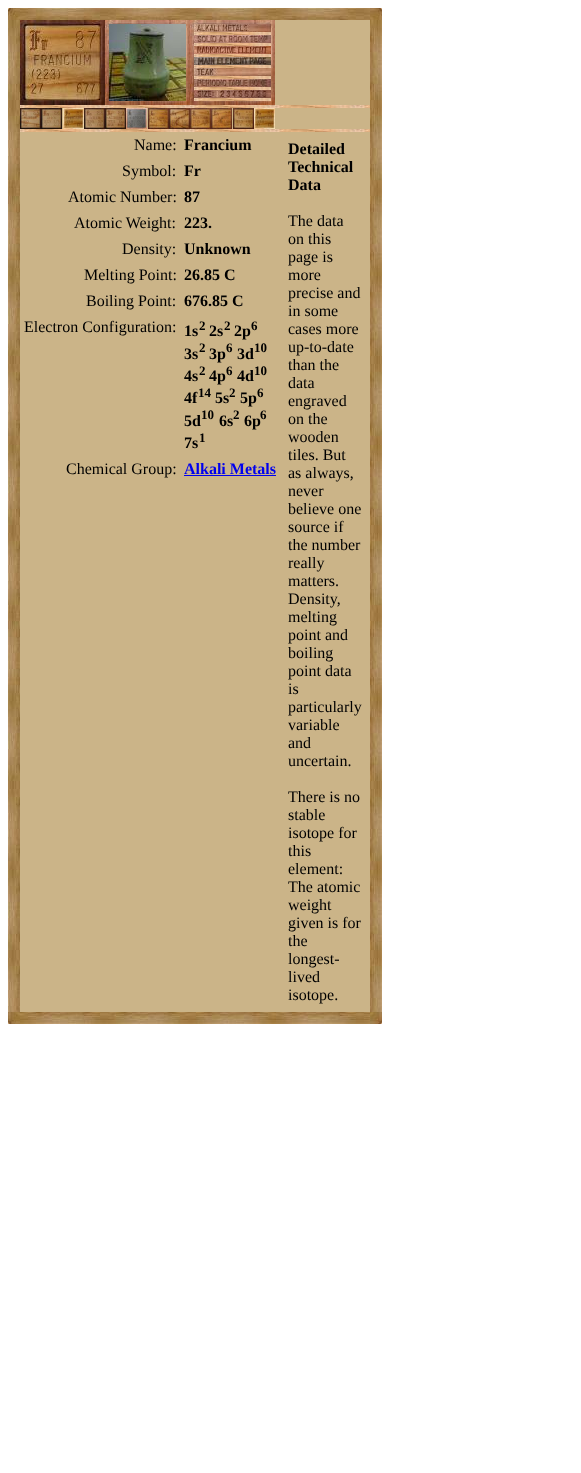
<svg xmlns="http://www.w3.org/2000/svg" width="581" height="1473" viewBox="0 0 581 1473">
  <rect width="100%" height="100%" fill="#fff"/>
  <image x="8" y="8" width="12" height="12" href="img/1.png"/>
  <image x="20" y="8" width="350" height="12" href="img/2.png"/>
  <image x="370" y="8" width="12" height="12" href="img/3.png"/>
  <image x="8" y="20" width="12" height="992" href="img/4.png"/>
  <path d="M20 20h350v992H20z" fill="#cbb488"/>
  <image x="20" y="20" width="85" height="85" href="img/5.png"/>
  <image x="105" y="20" width="85" height="85" href="img/6.png"/>
  <image x="109" y="24" width="77" height="77" href="img/7.png"/>
  <image x="190" y="20" width="85" height="85" href="img/6.png"/>
  <image x="194" y="24" width="77" height="8" href="img/8.png"/>
  <image x="194" y="32" width="77" height="3" href="img/9.png"/>
  <image x="194" y="35" width="77" height="8" href="img/10.png"/>
  <image x="194" y="43" width="77" height="3" href="img/9.png"/>
  <image x="194" y="46" width="77" height="8" href="img/11.png"/>
  <image x="194" y="54" width="77" height="3" href="img/9.png"/>
  <image x="194" y="57" width="77" height="8" href="img/12.png"/>
  <image x="194" y="65" width="77" height="3" href="img/9.png"/>
  <image x="194" y="68" width="77" height="8" href="img/13.png"/>
  <image x="194" y="76" width="77" height="3" href="img/9.png"/>
  <image x="194" y="79" width="77" height="8" href="img/14.png"/>
  <image x="194" y="87" width="77" height="3" href="img/9.png"/>
  <image x="194" y="90" width="77" height="8" href="img/15.png"/>
  <image x="194" y="98" width="77" height="3" href="img/9.png"/>
  <image x="20" y="105" width="350" height="3" href="img/16.png"/>
  <image x="20" y="108" width="21" height="21" href="img/17.png"/>
  <image x="41" y="108" width="21" height="21" href="img/18.png"/>
  <image x="63" y="108" width="21" height="21" href="img/19.png"/>
  <image x="84" y="108" width="21" height="21" href="img/20.png"/>
  <image x="105" y="108" width="21" height="21" href="img/21.png"/>
  <image x="126" y="108" width="21" height="21" href="img/22.png"/>
  <image x="148" y="108" width="21" height="21" href="img/23.png"/>
  <image x="169" y="108" width="21" height="21" href="img/24.png"/>
  <image x="190" y="108" width="21" height="21" href="img/25.png"/>
  <image x="211" y="108" width="21" height="21" href="img/26.png"/>
  <image x="233" y="108" width="21" height="21" href="img/27.png"/>
  <image x="254" y="108" width="21" height="21" href="img/19.png"/>
  <image x="20" y="129" width="350" height="3" href="img/16.png"/>
  <path d="M184 475h92v1H184z" fill="#00e"/>
  <image x="370" y="20" width="12" height="992" href="img/28.png"/>
  <image x="8" y="1012" width="12" height="12" href="img/29.png"/>
  <image x="20" y="1012" width="350" height="12" href="img/30.png"/>
  <image x="370" y="1012" width="12" height="12" href="img/31.png"/>
  <text x="134" y="150" font-family="Liberation Serif" font-size="16" fill="#000">Name:</text>
  <text x="184" y="150" font-family="Liberation Serif" font-size="16" font-weight="bold" fill="#000">Francium</text>
  <text x="122" y="176" font-family="Liberation Serif" font-size="16" fill="#000">Symbol:</text>
  <text x="184" y="176" font-family="Liberation Serif" font-size="16" font-weight="bold" fill="#000">Fr</text>
  <text x="68" y="202" font-family="Liberation Serif" font-size="16" fill="#000">Atomic Number:</text>
  <text x="184" y="202" font-family="Liberation Serif" font-size="16" font-weight="bold" fill="#000">87</text>
  <text x="74" y="228" font-family="Liberation Serif" font-size="16" fill="#000">Atomic Weight:</text>
  <text x="184" y="228" font-family="Liberation Serif" font-size="16" font-weight="bold" fill="#000">223.</text>
  <text x="122" y="254" font-family="Liberation Serif" font-size="16" fill="#000">Density:</text>
  <text x="184" y="254" font-family="Liberation Serif" font-size="16" font-weight="bold" fill="#000">Unknown</text>
  <text x="84" y="280" font-family="Liberation Serif" font-size="16" fill="#000">Melting Point:</text>
  <text x="184" y="280" font-family="Liberation Serif" font-size="16" font-weight="bold" fill="#000">26.85 C</text>
  <text x="86" y="306" font-family="Liberation Serif" font-size="16" fill="#000">Boiling Point:</text>
  <text x="184" y="306" font-family="Liberation Serif" font-size="16" font-weight="bold" fill="#000">676.85 C</text>
  <text x="24" y="332" font-family="Liberation Serif" font-size="16" fill="#000">Electron Configuration:</text>
  <text x="184" y="336" font-family="Liberation Serif" font-size="16" font-weight="bold" fill="#000">1s</text>
  <text x="199" y="330" font-family="Liberation Serif" font-size="13" font-weight="bold" fill="#000">2</text>
  <text x="209" y="336" font-family="Liberation Serif" font-size="16" font-weight="bold" fill="#000">2s</text>
  <text x="224" y="330" font-family="Liberation Serif" font-size="13" font-weight="bold" fill="#000">2</text>
  <text x="234" y="336" font-family="Liberation Serif" font-size="16" font-weight="bold" fill="#000">2p</text>
  <text x="251" y="330" font-family="Liberation Serif" font-size="13" font-weight="bold" fill="#000">6</text>
  <text x="184" y="359" font-family="Liberation Serif" font-size="16" font-weight="bold" fill="#000">3s</text>
  <text x="199" y="352" font-family="Liberation Serif" font-size="13" font-weight="bold" fill="#000">2</text>
  <text x="209" y="359" font-family="Liberation Serif" font-size="16" font-weight="bold" fill="#000">3p</text>
  <text x="226" y="352" font-family="Liberation Serif" font-size="13" font-weight="bold" fill="#000">6</text>
  <text x="237" y="359" font-family="Liberation Serif" font-size="16" font-weight="bold" fill="#000">3d</text>
  <text x="254" y="352" font-family="Liberation Serif" font-size="13" font-weight="bold" fill="#000">10</text>
  <text x="184" y="381" font-family="Liberation Serif" font-size="16" font-weight="bold" fill="#000">4s</text>
  <text x="199" y="375" font-family="Liberation Serif" font-size="13" font-weight="bold" fill="#000">2</text>
  <text x="209" y="381" font-family="Liberation Serif" font-size="16" font-weight="bold" fill="#000">4p</text>
  <text x="226" y="375" font-family="Liberation Serif" font-size="13" font-weight="bold" fill="#000">6</text>
  <text x="237" y="381" font-family="Liberation Serif" font-size="16" font-weight="bold" fill="#000">4d</text>
  <text x="254" y="375" font-family="Liberation Serif" font-size="13" font-weight="bold" fill="#000">10</text>
  <text x="184" y="403" font-family="Liberation Serif" font-size="16" font-weight="bold" fill="#000">4f</text>
  <text x="198" y="397" font-family="Liberation Serif" font-size="13" font-weight="bold" fill="#000">14</text>
  <text x="215" y="403" font-family="Liberation Serif" font-size="16" font-weight="bold" fill="#000">5s</text>
  <text x="229" y="397" font-family="Liberation Serif" font-size="13" font-weight="bold" fill="#000">2</text>
  <text x="240" y="403" font-family="Liberation Serif" font-size="16" font-weight="bold" fill="#000">5p</text>
  <text x="257" y="397" font-family="Liberation Serif" font-size="13" font-weight="bold" fill="#000">6</text>
  <text x="184" y="426" font-family="Liberation Serif" font-size="16" font-weight="bold" fill="#000">5d</text>
  <text x="201" y="419" font-family="Liberation Serif" font-size="13" font-weight="bold" fill="#000">10</text>
  <text x="219" y="426" font-family="Liberation Serif" font-size="16" font-weight="bold" fill="#000">6s</text>
  <text x="233" y="419" font-family="Liberation Serif" font-size="13" font-weight="bold" fill="#000">2</text>
  <text x="244" y="426" font-family="Liberation Serif" font-size="16" font-weight="bold" fill="#000">6p</text>
  <text x="260" y="419" font-family="Liberation Serif" font-size="13" font-weight="bold" fill="#000">6</text>
  <text x="184" y="448" font-family="Liberation Serif" font-size="16" font-weight="bold" fill="#000">7s</text>
  <text x="199" y="442" font-family="Liberation Serif" font-size="13" font-weight="bold" fill="#000">1</text>
  <text x="66" y="474" font-family="Liberation Serif" font-size="16" fill="#000">Chemical Group:</text>
  <text x="184" y="474" font-family="Liberation Serif" font-size="16" font-weight="bold" fill="#00e">Alkali Metals</text>
  <g font-family="Liberation Serif" font-size="16" font-weight="bold" fill="#000">
    <text x="288" y="154">Detailed</text>
    <text x="288" y="172">Technical</text>
    <text x="288" y="190">Data</text>
  </g>
  <g font-family="Liberation Serif" font-size="16" fill="#000">
    <text x="288" y="226">The data</text>
    <text x="288" y="244">on this</text>
    <text x="288" y="262">page is</text>
    <text x="288" y="280">more</text>
    <text x="288" y="298">precise and</text>
    <text x="288" y="316">in some</text>
    <text x="288" y="334">cases more</text>
    <text x="288" y="352">up-to-date</text>
    <text x="288" y="370">than the</text>
    <text x="288" y="388">data</text>
    <text x="288" y="406">engraved</text>
    <text x="288" y="424">on the</text>
    <text x="288" y="442">wooden</text>
    <text x="288" y="460">tiles. But</text>
    <text x="288" y="478">as always,</text>
    <text x="288" y="496">never</text>
    <text x="288" y="514">believe one</text>
    <text x="288" y="532">source if</text>
    <text x="288" y="550">the number</text>
    <text x="288" y="568">really</text>
    <text x="288" y="586">matters.</text>
    <text x="288" y="604">Density,</text>
    <text x="288" y="622">melting</text>
    <text x="288" y="640">point and</text>
    <text x="288" y="658">boiling</text>
    <text x="288" y="676">point data</text>
    <text x="288" y="694">is</text>
    <text x="288" y="712">particularly</text>
    <text x="288" y="730">variable</text>
    <text x="288" y="748">and</text>
    <text x="288" y="766">uncertain.</text>
    <text x="288" y="802">There is no</text>
    <text x="288" y="820">stable</text>
    <text x="288" y="838">isotope for</text>
    <text x="288" y="856">this</text>
    <text x="288" y="874">element:</text>
    <text x="288" y="892">The atomic</text>
    <text x="288" y="910">weight</text>
    <text x="288" y="928">given is for</text>
    <text x="288" y="946">the</text>
    <text x="288" y="964">longest-</text>
    <text x="288" y="982">lived</text>
    <text x="288" y="1000">isotope.</text>
  </g>
</svg>
